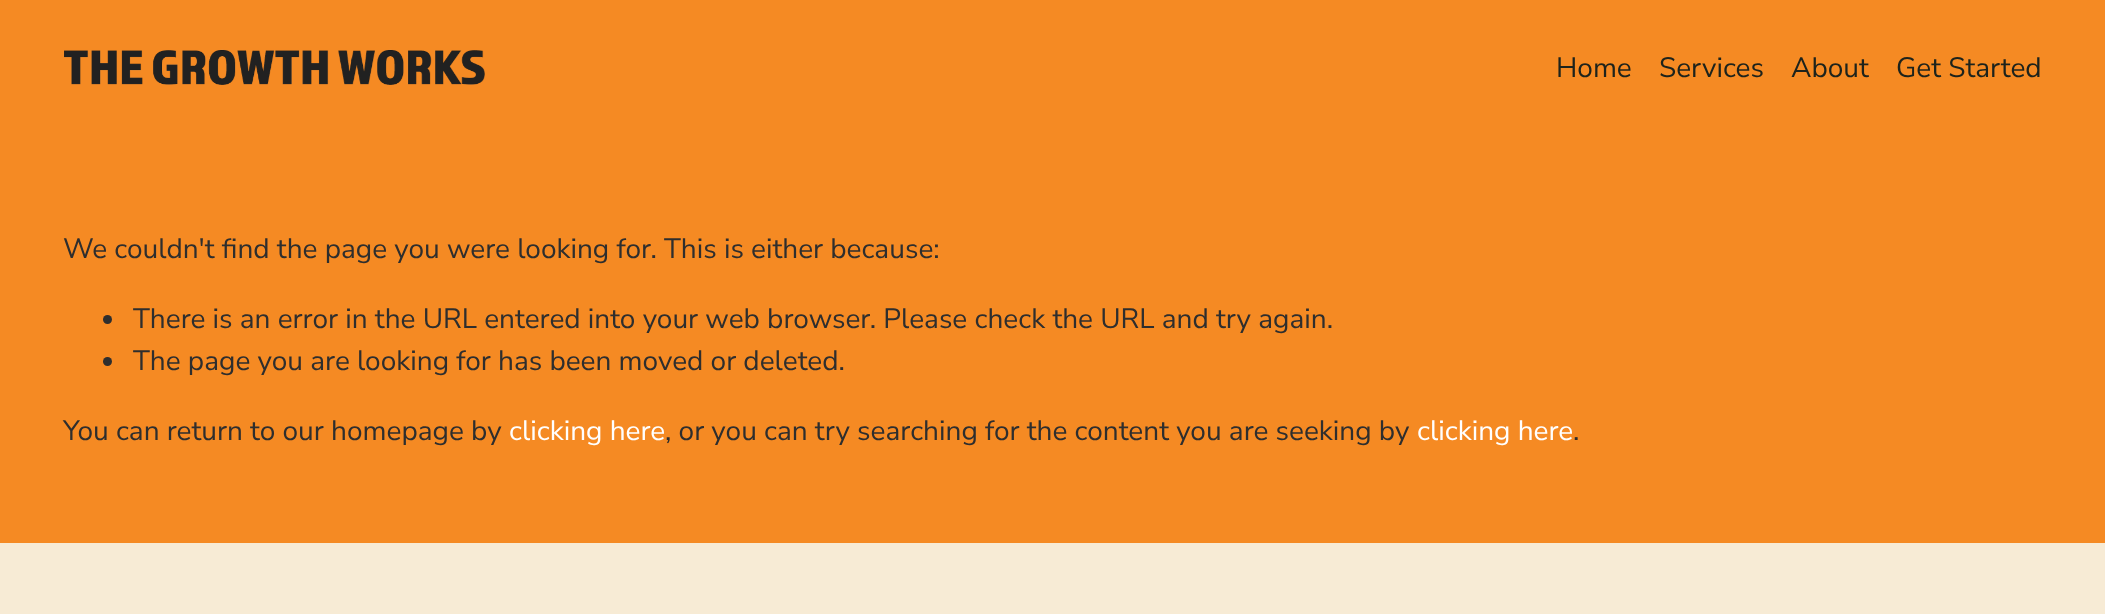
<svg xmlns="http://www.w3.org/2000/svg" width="2105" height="614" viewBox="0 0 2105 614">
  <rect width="100%" height="100%" fill="#f58a23"/>
  <image x="63" y="49" width="422" height="36" href="img/1.png"/>
  <circle cx="107.5" cy="319.5" r="4.5" fill="#2e2e2e"/>
  <circle cx="107.5" cy="361.5" r="4.5" fill="#2e2e2e"/>
  <path d="M0 543h2105v71H0z" fill="#f7ebd5"/>
  <g font-family="Nunito Sans" font-size="28" fill="#1d231c">
    <text x="1556" y="77">Home</text>
    <text x="1659" y="77">Services</text>
    <text x="1791" y="77">About</text>
    <text x="1896" y="77">Get Started</text>
  </g>
  <g font-family="Nunito Sans" font-size="28" fill="#2e2e2e">
    <text x="63" y="258">We couldn't find the page you were looking for. This is either because:</text>
    <text x="133" y="328">There is an error in the URL entered into your web browser. Please check the URL and try again.</text>
    <text x="133" y="370">The page you are looking for has been moved or deleted.</text>
    <text x="63" y="440">You can return to our homepage by</text>
  </g>
  <text x="509" y="440" font-family="Nunito Sans" font-size="28" fill="#fff">clicking here</text>
  <text x="665" y="440" font-family="Nunito Sans" font-size="28" fill="#2e2e2e">, or you can try searching for the content you are seeking by</text>
  <text x="1417" y="440" font-family="Nunito Sans" font-size="28" fill="#fff">clicking here</text>
  <text x="1573" y="440" font-family="Nunito Sans" font-size="28" fill="#2e2e2e">.</text>
</svg>
